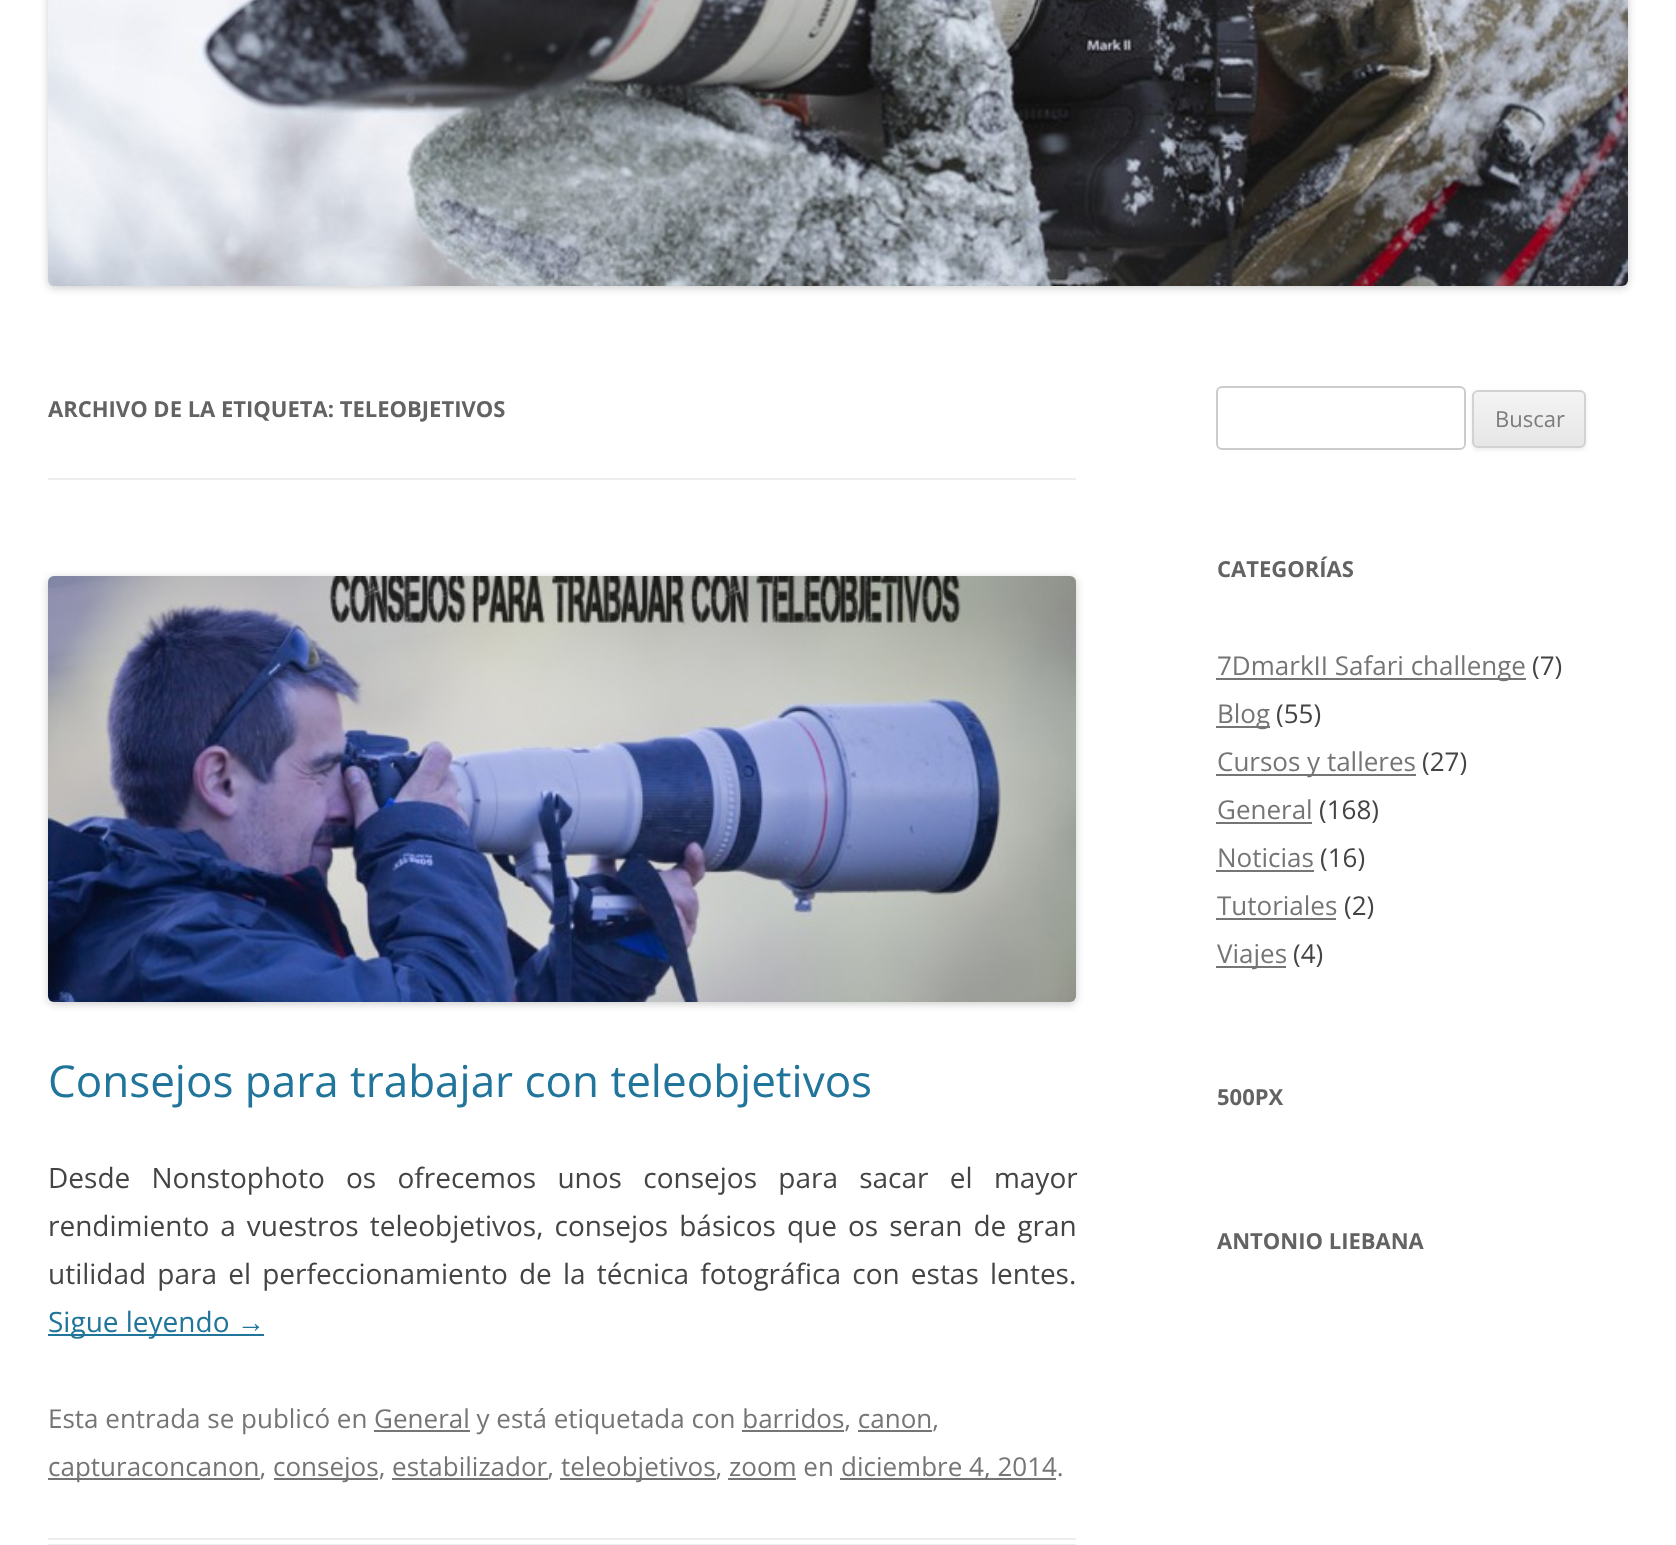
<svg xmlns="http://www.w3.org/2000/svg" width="1676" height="1545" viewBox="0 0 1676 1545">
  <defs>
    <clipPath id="clip1"><rect x="1472" y="390" width="114" height="58" rx="6"/></clipPath>
    <linearGradient id="g1" gradientUnits="userSpaceOnUse" x1="1529" y1="392" x2="1529" y2="446"><stop offset="0" stop-color="#f4f4f4"/><stop offset="1" stop-color="#e6e6e6"/></linearGradient>
  </defs>
  <rect width="100%" height="100%" fill="#fff"/>
  <rect x="48" y="-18" width="1580" height="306" rx="6" fill="#00000033" filter="blur(4px)"/>
  <image x="48" y="0" width="1580" height="286" href="img/1.png"/>
  <path d="M48 478h1028v2H48z" fill="#ededed"/>
  <path d="M48 1538h1028v2H48z" fill="#ededed"/>
  <path d="M48 1544h1028v1H48z" fill="#ededed"/>
  <rect x="48" y="578" width="1028" height="426" rx="6" fill="#00000033" filter="blur(4px)"/>
  <image x="48" y="576" width="1028" height="426" href="img/2.png"/>
  <path d="M48 1334h216v2H48z" fill="#21759b"/>
  <path d="M374 1430h96v2H374z" fill="#757575"/>
  <path d="M742 1430h102v2H742z" fill="#757575"/>
  <path d="M858 1430h74v2H858z" fill="#757575"/>
  <path d="M48 1478h212v2H48z" fill="#757575"/>
  <path d="M274 1478h104v2H274z" fill="#757575"/>
  <path d="M560 1478h156v2H560z" fill="#757575"/>
  <path d="M840 1478h216v2H840z" fill="#757575"/>
  <path d="M392 1478h156v2H392z" fill="#757575"/>
  <path d="M728 1478h68v2H728z" fill="#757575"/>
  <rect x="1217" y="387" width="248" height="62" rx="5" fill="none" stroke="#ccc" stroke-width="2"/>
  <rect x="1472" y="392" width="114" height="58" rx="6" fill="#4040401a" filter="blur(2px)"/>
  <g clip-path="url(#clip1)">
    <path d="M1472 392h114v54H1472z" fill="url(#g1)"/>
  </g>
  <rect x="1473" y="391" width="112" height="56" rx="5" fill="none" stroke="#d2d2d2" stroke-width="2"/>
  <path d="M1216 678h310v2H1216z" fill="#757575"/>
  <path d="M1216 726h54v2H1216z" fill="#757575"/>
  <path d="M1216 774h200v2H1216z" fill="#757575"/>
  <path d="M1216 822h96v2H1216z" fill="#757575"/>
  <path d="M1216 870h98v2H1216z" fill="#757575"/>
  <path d="M1216 918h120v2H1216z" fill="#757575"/>
  <path d="M1216 966h70v2H1216z" fill="#757575"/>
  <text x="48" y="417" font-family="Open Sans" font-size="22" font-weight="bold" fill="#636363">ARCHIVO DE LA ETIQUETA: TELEOBJETIVOS</text>
  <text x="48" y="1097" font-family="Open Sans" font-size="44" fill="#21759b">Consejos para trabajar con teleobjetivos</text>
  <g font-family="Open Sans" font-size="28" fill="#444">
    <text x="48" y="1188" word-spacing="14">Desde Nonstophoto os ofrecemos unos consejos para sacar el mayor</text>
    <text x="48" y="1236" word-spacing="3.75">rendimiento a vuestros teleobjetivos, consejos básicos que os seran de gran</text>
    <text x="48" y="1284" word-spacing="3.9">utilidad para el perfeccionamiento de la técnica fotográfica con estas lentes.</text>
  </g>
  <text x="48" y="1332" font-family="Open Sans" font-size="28" fill="#21759b">Sigue leyendo</text>
  <text x="237" y="1332" font-family="Liberation Sans" font-size="28" fill="#21759b">→</text>
  <g font-family="Open Sans" font-size="26" fill="#757575">
    <text x="48" y="1428">Esta entrada se publicó en General y está etiquetada con barridos, canon,</text>
    <text x="48" y="1476">capturaconcanon,</text>
    <text x="273" y="1476">consejos, estabilizador,</text>
    <text x="561" y="1476">teleobjetivos, zoom en</text>
    <text x="841" y="1476">diciembre 4, 2014.</text>
  </g>
  <text x="1495" y="427" font-family="Open Sans" font-size="22" fill="#7c7c7c">Buscar</text>
  <text x="1217" y="577" font-family="Open Sans" font-size="22" font-weight="bold" fill="#636363">CATEGORÍAS</text>
  <text x="1217" y="675" font-family="Open Sans" font-size="26" fill="#757575">7DmarkII Safari challenge</text>
  <text x="1532" y="675" font-family="Open Sans" font-size="26" fill="#444">(7)</text>
  <text x="1217" y="723" font-family="Open Sans" font-size="26" fill="#757575">Blog</text>
  <text x="1276" y="723" font-family="Open Sans" font-size="26" fill="#444">(55)</text>
  <text x="1217" y="771" font-family="Open Sans" font-size="26" fill="#757575">Cursos y talleres</text>
  <text x="1422" y="771" font-family="Open Sans" font-size="26" fill="#444">(27)</text>
  <text x="1217" y="819" font-family="Open Sans" font-size="26" fill="#757575">General</text>
  <text x="1319" y="819" font-family="Open Sans" font-size="26" fill="#444">(168)</text>
  <text x="1217" y="867" font-family="Open Sans" font-size="26" fill="#757575">Noticias</text>
  <text x="1320" y="867" font-family="Open Sans" font-size="26" fill="#444">(16)</text>
  <text x="1217" y="915" font-family="Open Sans" font-size="26" fill="#757575">Tutoriales</text>
  <text x="1344" y="915" font-family="Open Sans" font-size="26" fill="#444">(2)</text>
  <text x="1217" y="963" font-family="Open Sans" font-size="26" fill="#757575">Viajes</text>
  <text x="1293" y="963" font-family="Open Sans" font-size="26" fill="#444">(4)</text>
  <g font-family="Open Sans" font-size="22" font-weight="bold" fill="#636363">
    <text x="1217" y="1105">500PX</text>
    <text x="1217" y="1249">ANTONIO LIEBANA</text>
  </g>
</svg>
